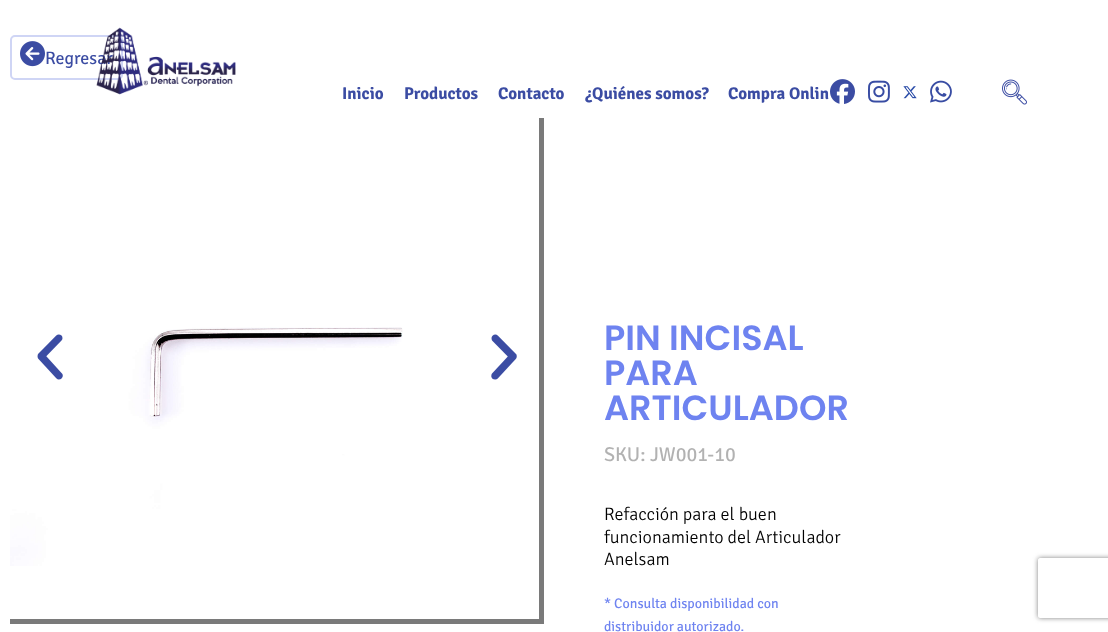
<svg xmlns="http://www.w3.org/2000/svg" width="1108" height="632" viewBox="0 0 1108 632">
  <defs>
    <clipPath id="clip1"><path d="M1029 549H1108V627H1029ZM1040 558H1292C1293 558 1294 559 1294 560V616C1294 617 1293 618 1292 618H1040C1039 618 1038 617 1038 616V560C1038 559 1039 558 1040 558Z" clip-rule="evenodd"/></clipPath>
  </defs>
  <rect width="100%" height="100%" fill="#fff"/>
  <rect x="11" y="36" width="111" height="43" rx="4" fill="none" stroke="#cfd5f5" stroke-width="2"/>
  <image x="20" y="41" width="25" height="26" href="img/1.png"/>
  <image x="10" y="327" width="393" height="239" href="img/2.png"/>
  <path d="M539 118h5v506H539z" fill="#7a7a7a"/>
  <path d="M10 619h534v5H10z" fill="#7a7a7a"/>
  <image x="37" y="334" width="26" height="46" href="img/3.png"/>
  <image x="491" y="334" width="26" height="46" href="img/4.png"/>
  <image x="830" y="79" width="25" height="25" href="img/6.png"/>
  <image x="868" y="80" width="22" height="23" href="img/7.png"/>
  <image x="903" y="86" width="14" height="13" href="img/8.png"/>
  <image x="930" y="80" width="22" height="23" href="img/9.png"/>
  <image x="1002" y="79" width="25" height="26" href="img/10.png"/>
  <g clip-path="url(#clip1)">
    <rect x="1038" y="558" width="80" height="60" rx="2" fill="#808080" filter="blur(2.5px)"/>
  </g>
  <text x="45" y="64" font-family="Signika Negative" font-size="18" fill="#3b4ca3">Regresar</text>
  <g font-family="Poppins" font-size="35" font-weight="600" fill="#6e83f0">
    <text x="604" y="350">PIN INCISAL</text>
    <text x="604" y="385">PARA</text>
    <text x="604" y="420">ARTICULADOR</text>
  </g>
  <text x="604" y="461" font-family="Signika Negative" font-size="20" fill="#b2b2b2">SKU: JW001-10</text>
  <g font-family="Signika Negative" font-size="18" font-weight="300" fill="#000">
    <text x="604" y="520">Refacción para el buen</text>
    <text x="604" y="543">funcionamiento del Articulador</text>
    <text x="604" y="565">Anelsam</text>
  </g>
  <g font-family="Signika Negative" font-size="14" fill="#6e83f0">
    <text x="604" y="608">* Consulta disponibilidad con</text>
    <text x="604" y="631">distribuidor autorizado.</text>
  </g>
  <image x="96" y="27" width="140" height="68" href="img/5.png"/>
  <g font-family="Signika Negative" font-size="17" font-weight="bold" fill="#3b4ca3">
    <text x="342" y="99">Inicio</text>
    <text x="404" y="99">Productos</text>
    <text x="498" y="99">Contacto</text>
    <text x="585" y="99">¿Quiénes somos?</text>
    <text x="728" y="99">Compra Onlin</text>
  </g>
</svg>
